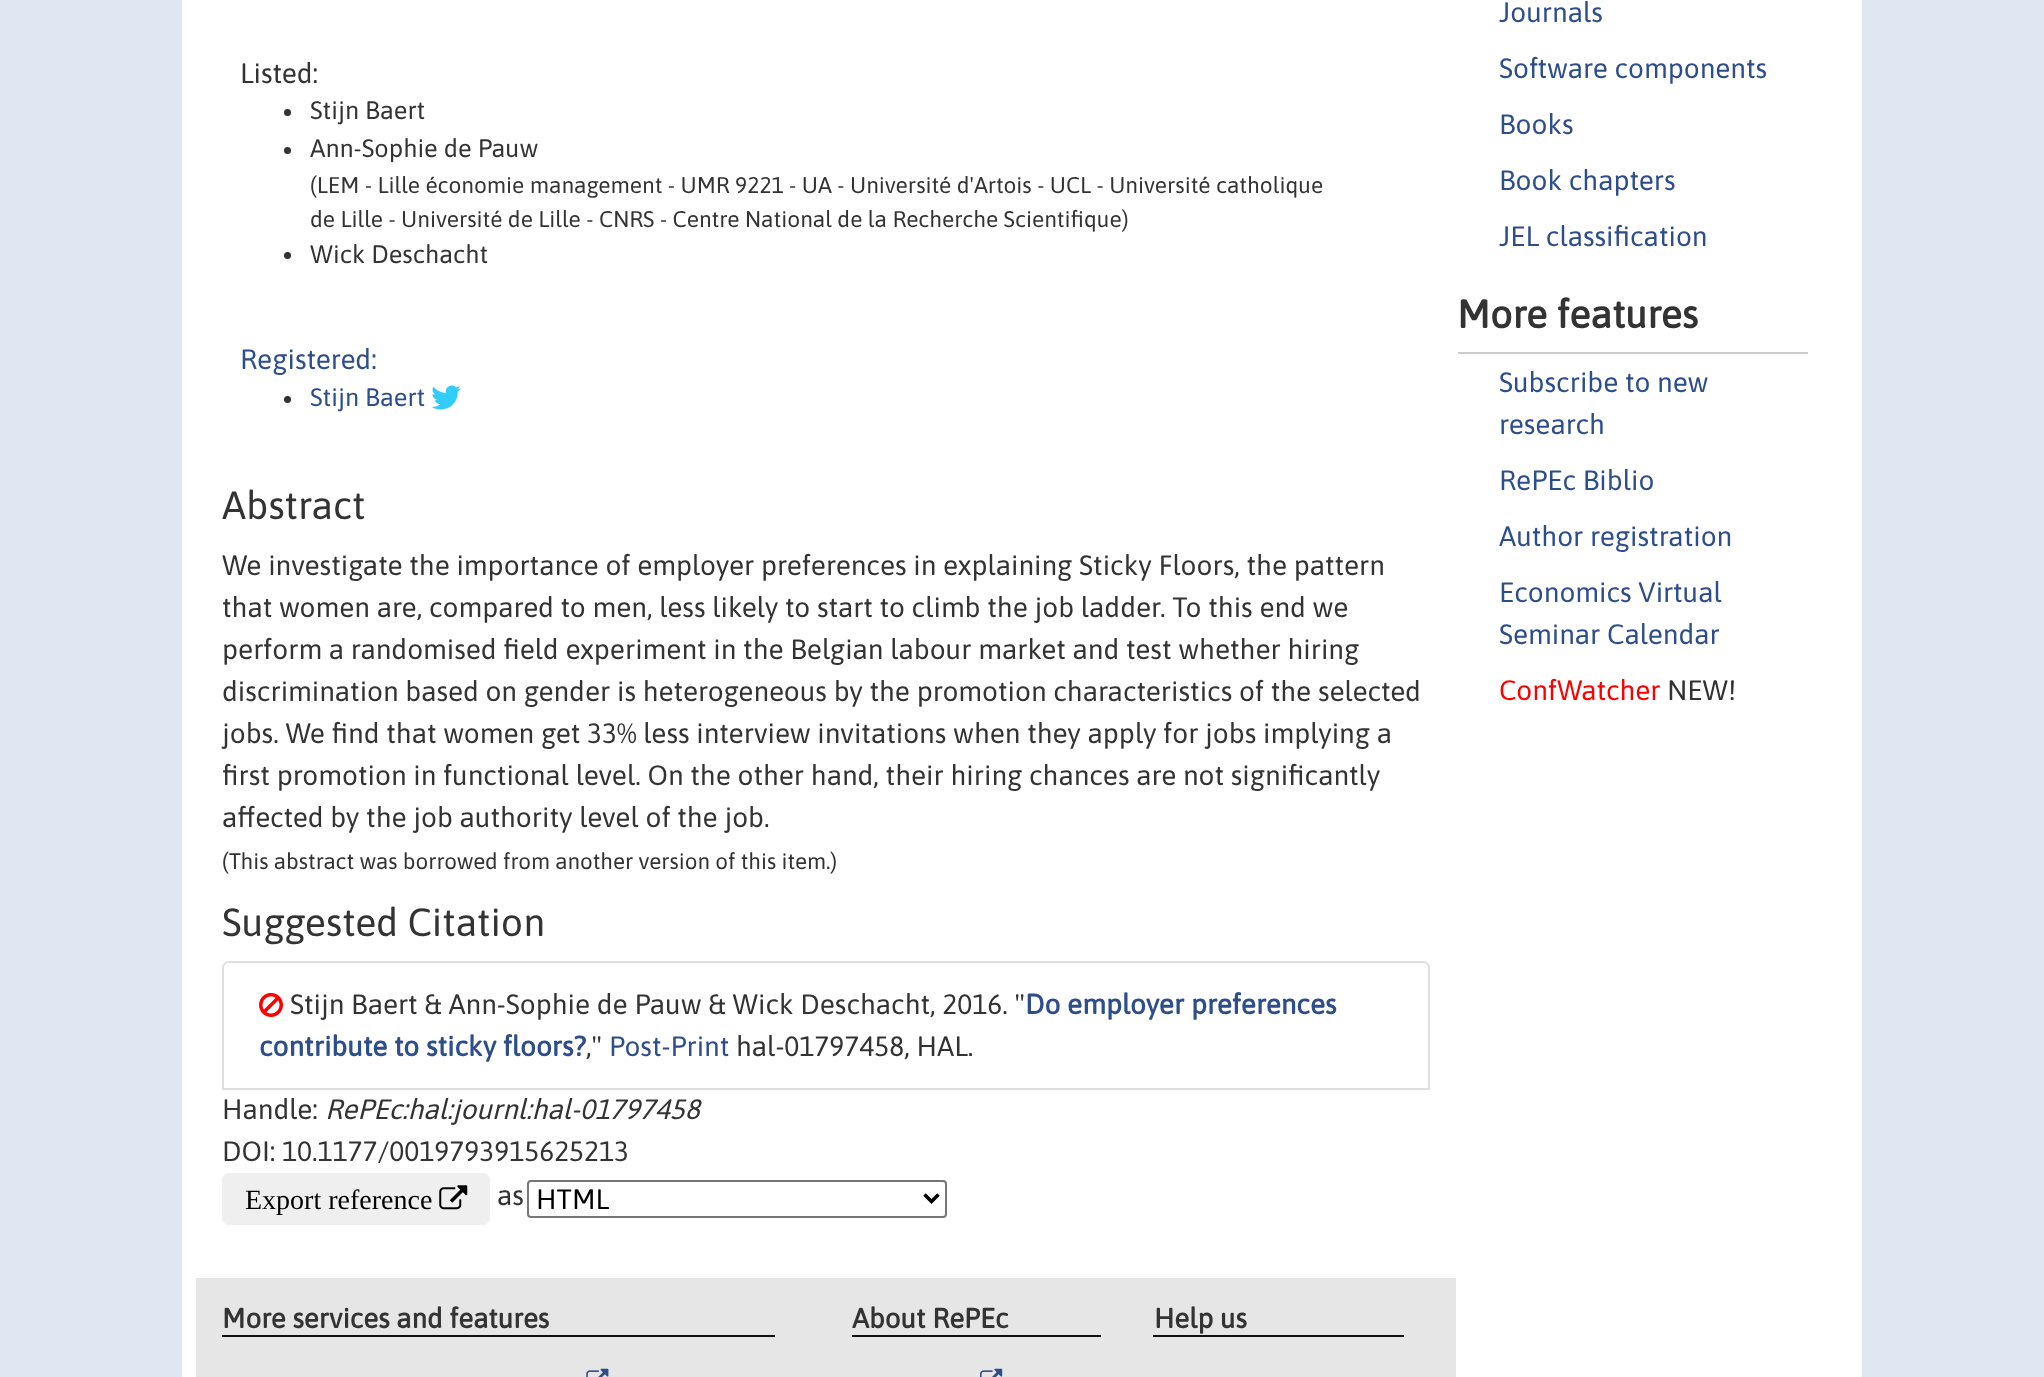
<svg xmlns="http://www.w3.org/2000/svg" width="2044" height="1377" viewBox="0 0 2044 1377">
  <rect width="100%" height="100%" fill="#dfe7f2"/>
  <path d="M182 0h1680v1377H182z" fill="#fff"/>
  <circle cx="287.5" cy="112.5" r="3.5" fill="#333"/>
  <circle cx="287.5" cy="150.5" r="3.5" fill="#333"/>
  <circle cx="287.5" cy="255.5" r="3.5" fill="#333"/>
  <circle cx="287.5" cy="399.5" r="3.5" fill="#333"/>
  <image x="431" y="385" width="30" height="25" href="img/1.png"/>
  <path d="M229 962H1423C1426.5 962 1429 964.5 1429 968V1089H223V968C223 964.5 225.5 962 229 962Z" fill="none" stroke="#dfdfdf" stroke-width="2"/>
  <image x="259" y="992" width="24" height="25" href="img/2.png"/>
  <rect x="222" y="1173" width="268" height="52" rx="7" fill="#efefef"/>
  <image x="439" y="1185" width="29" height="25" href="img/3.png"/>
  <rect x="528" y="1181" width="418" height="36" rx="3" fill="none" stroke="#767676" stroke-width="2"/>
  <path d="M924.5 1194.5L931.5 1201.5L938.5 1194.5" fill="none" stroke="#000" stroke-width="3.5"/>
  <path d="M196 1278h1260v99H196z" fill="#e6e6e6"/>
  <path d="M222 1335h553v2H222z" fill="#111"/>
  <image x="586" y="1368" width="23" height="9" href="img/4.png"/>
  <path d="M852 1335h249v2H852z" fill="#111"/>
  <image x="980" y="1368" width="23" height="9" href="img/5.png"/>
  <path d="M1153 1335h251v2H1153z" fill="#111"/>
  <path d="M1458 352h350v2H1458z" fill="#ccc"/>
  <text x="240" y="83" font-family="Asap" font-size="28" fill="#333">Listed:</text>
  <g font-family="Asap" font-size="25.25" fill="#333">
    <text x="310" y="119">Stijn Baert</text>
    <text x="310" y="157">Ann-Sophie de Pauw</text>
  </g>
  <g font-family="Asap" font-size="22.7" fill="#333">
    <text x="310" y="193">(LEM - Lille économie management - UMR 9221 - UA - Université d'Artois - UCL - Université catholique</text>
    <text x="310" y="227">de Lille - Université de Lille - CNRS - Centre National de la Recherche Scientifique)</text>
  </g>
  <text x="310" y="263" font-family="Asap" font-size="25.25" fill="#333">Wick Deschacht</text>
  <text x="240" y="369" font-family="Asap" font-size="28" fill="#2d4e8b">Registered:</text>
  <text x="310" y="406" font-family="Asap" font-size="25.25" fill="#2d4e8b">Stijn Baert</text>
  <text x="222" y="519" font-family="Asap" font-size="39.25" fill="#333">Abstract</text>
  <g font-family="Asap" font-size="28" fill="#333">
    <text x="222" y="575">We investigate the importance of employer preferences in explaining Sticky Floors, the pattern</text>
    <text x="222" y="617">that women are, compared to men, less likely to start to climb the job ladder. To this end we</text>
    <text x="222" y="659">perform a randomised field experiment in the Belgian labour market and test whether hiring</text>
    <text x="222" y="701">discrimination based on gender is heterogeneous by the promotion characteristics of the selected</text>
    <text x="222" y="743">jobs. We find that women get 33% less interview invitations when they apply for jobs implying a</text>
    <text x="222" y="785">first promotion in functional level. On the other hand, their hiring chances are not significantly</text>
    <text x="222" y="827">affected by the job authority level of the job.</text>
  </g>
  <text x="222" y="869" font-family="Asap" font-size="22.4" fill="#333">(This abstract was borrowed from another version of this item.)</text>
  <text x="222" y="936" font-family="Asap" font-size="39.25" fill="#333">Suggested Citation</text>
  <text x="290" y="1014" font-family="Asap" font-size="28" fill="#333">Stijn Baert &amp; Ann-Sophie de Pauw &amp; Wick Deschacht, 2016. "</text>
  <g font-family="Asap" font-size="28" font-weight="bold" fill="#2d4e8b">
    <text x="1025" y="1014">Do employer preferences</text>
    <text x="259" y="1056">contribute to sticky floors?</text>
  </g>
  <text x="586" y="1056" font-family="Asap" font-size="28" fill="#333">,"</text>
  <text x="609" y="1056" font-family="Asap" font-size="28" fill="#2d4e8b">Post-Print</text>
  <g font-family="Asap" font-size="28" fill="#333">
    <text x="736" y="1056">hal-01797458, HAL.</text>
    <text x="222" y="1119">Handle:</text>
  </g>
  <text x="325" y="1119" font-family="Asap" font-size="28" font-style="italic" fill="#333">RePEc:hal:journl:hal-01797458</text>
  <text x="222" y="1161" font-family="Asap" font-size="28" fill="#333">DOI: 10.1177/0019793915625213</text>
  <text x="245" y="1209" font-family="Liberation Serif" font-size="28" fill="#000">Export reference</text>
  <text x="497" y="1205" font-family="Asap" font-size="28" fill="#333">as</text>
  <text x="536" y="1209" font-family="Asap" font-size="28" fill="#000">HTML</text>
  <g font-family="Asap" font-size="27.75" font-weight="bold" fill="#333">
    <text x="222" y="1328">More services and features</text>
    <text x="852" y="1328">About RePEc</text>
    <text x="1154" y="1328">Help us</text>
  </g>
  <g font-family="Asap" font-size="28" fill="#2d4e8b">
    <text x="1499" y="22">Journals</text>
    <text x="1499" y="78">Software components</text>
    <text x="1499" y="134">Books</text>
    <text x="1499" y="190">Book chapters</text>
    <text x="1499" y="246">JEL classification</text>
  </g>
  <text x="1457" y="328" font-family="Asap" font-size="39.25" font-weight="bold" fill="#333">More features</text>
  <g font-family="Asap" font-size="28" fill="#2d4e8b">
    <text x="1499" y="392">Subscribe to new</text>
    <text x="1499" y="434">research</text>
    <text x="1499" y="490">RePEc Biblio</text>
    <text x="1499" y="546">Author registration</text>
    <text x="1499" y="602">Economics Virtual</text>
    <text x="1499" y="644">Seminar Calendar</text>
  </g>
  <text x="1499" y="700" font-family="Asap" font-size="28" fill="#f00">ConfWatcher</text>
  <text x="1667" y="700" font-family="Asap" font-size="28" fill="#333">NEW!</text>
</svg>
